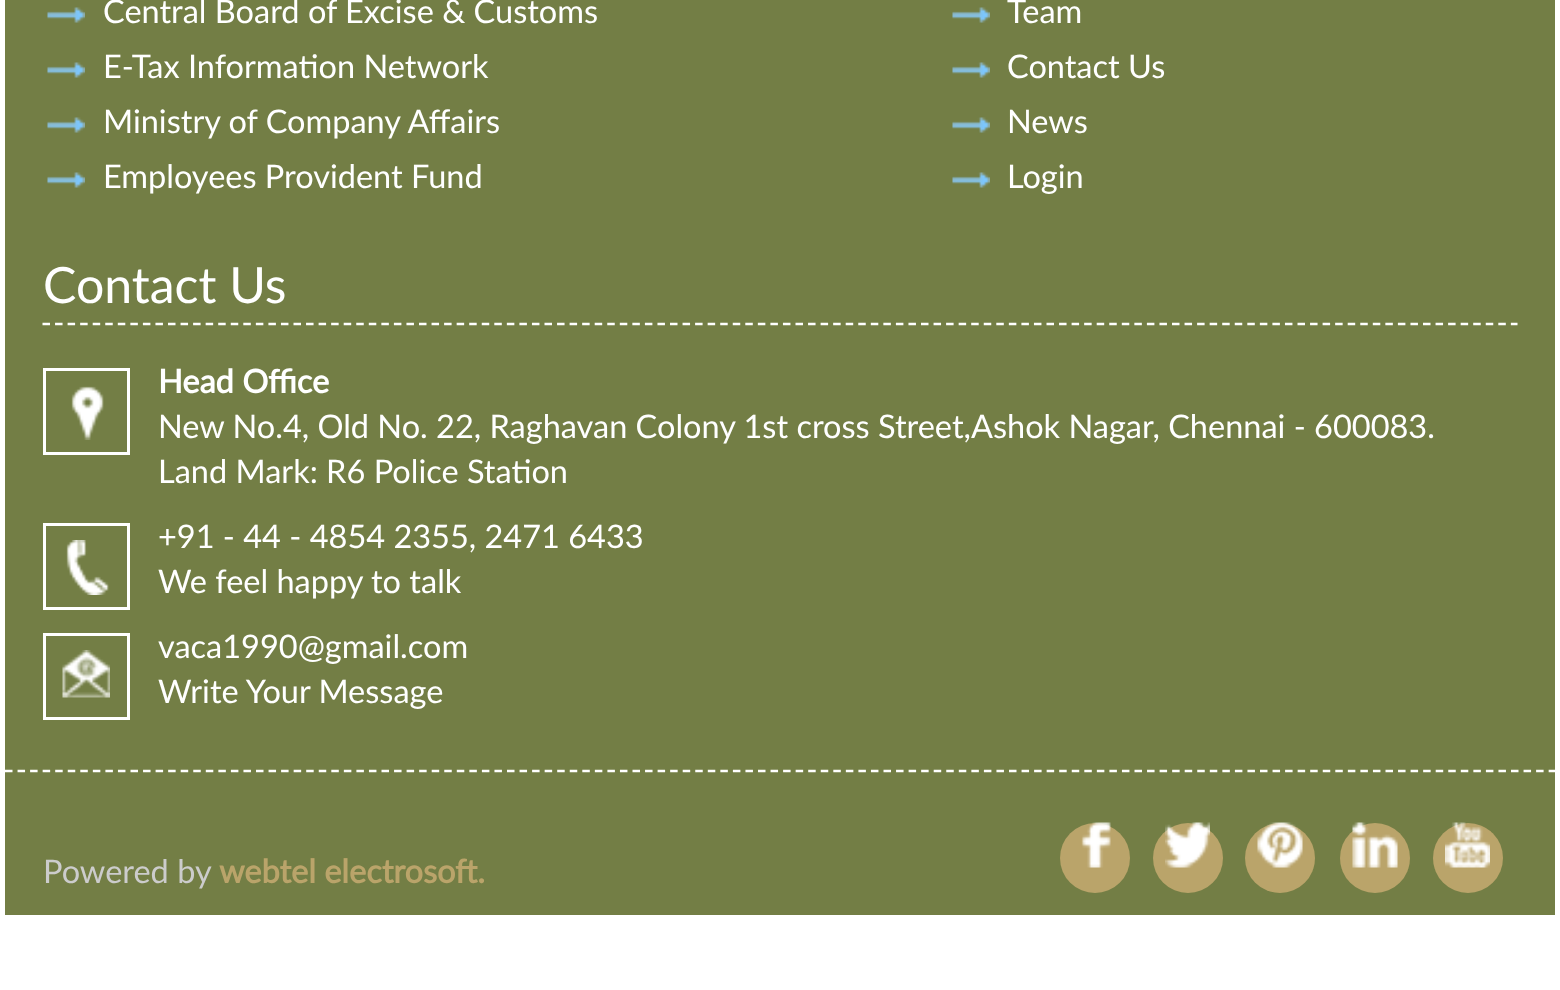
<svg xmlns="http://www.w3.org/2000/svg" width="1560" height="990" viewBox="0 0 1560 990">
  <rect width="100%" height="100%" fill="#fff"/>
  <path d="M5 0h1550v915H5z" fill="#737e45"/>
  <image x="47" y="7" width="38" height="16" href="img/1.png"/>
  <image x="47" y="62" width="38" height="16" href="img/1.png"/>
  <image x="47" y="117" width="38" height="16" href="img/2.png"/>
  <image x="47" y="172" width="38" height="16" href="img/1.png"/>
  <image x="952" y="7" width="38" height="16" href="img/1.png"/>
  <image x="952" y="62" width="38" height="16" href="img/1.png"/>
  <image x="952" y="117" width="38" height="16" href="img/2.png"/>
  <image x="952" y="172" width="38" height="16" href="img/1.png"/>
  <path d="M42.5 324H1517.5" fill="none" stroke="#fff" stroke-width="2.5" stroke-dasharray="7.5 5.05"/>
  <path d="M44.5 369.5h84v84H44.5z" fill="none" stroke="#fff" stroke-width="3"/>
  <image x="71" y="386" width="33" height="54" href="img/3.png"/>
  <path d="M44.5 524.5h84v84H44.5z" fill="none" stroke="#fff" stroke-width="3"/>
  <image x="66" y="540" width="43" height="55" href="img/4.png"/>
  <path d="M44.5 634.5h84v84H44.5z" fill="none" stroke="#fff" stroke-width="3"/>
  <image x="62" y="650" width="48" height="48" href="img/5.png"/>
  <path d="M5 771H1555" fill="none" stroke="#fff" stroke-width="2.5" stroke-dasharray="7.5 5.05"/>
  <circle cx="1095" cy="858" r="35" fill="#baa46a"/>
  <image x="1081" y="822" width="30" height="46" href="img/6.png"/>
  <circle cx="1188" cy="858" r="35" fill="#baa46a"/>
  <image x="1165" y="822" width="45" height="46" href="img/7.png"/>
  <circle cx="1280" cy="858" r="35" fill="#baa46a"/>
  <image x="1257" y="822" width="46" height="46" href="img/8.png"/>
  <circle cx="1375" cy="858" r="35" fill="#baa46a"/>
  <image x="1352" y="822" width="46" height="46" href="img/9.png"/>
  <circle cx="1468" cy="858" r="35" fill="#baa46a"/>
  <image x="1445" y="822" width="45" height="46" href="img/10.png"/>
  <g font-family="Lato" font-size="32.5" fill="#fff">
    <text x="103" y="23">Central Board of Excise &amp; Customs</text>
    <text x="103" y="78">E-Tax Information Network</text>
    <text x="103" y="133">Ministry of Company Affairs</text>
    <text x="103" y="188">Employees Provident Fund</text>
    <text x="1007" y="23">Team</text>
    <text x="1007" y="78">Contact Us</text>
    <text x="1007" y="133">News</text>
    <text x="1007" y="188">Login</text>
  </g>
  <text x="43" y="303" font-family="Lato" font-size="50" fill="#fff">Contact Us</text>
  <text x="158" y="393" font-family="Lato" font-size="32.5" font-weight="bold" fill="#fff">Head Office</text>
  <g font-family="Lato" font-size="32.5" fill="#fff">
    <text x="158" y="438">New No.4, Old No. 22, Raghavan Colony 1st cross Street,Ashok Nagar, Chennai - 600083.</text>
    <text x="158" y="483">Land Mark: R6 Police Station</text>
    <text x="158" y="548">+91 - 44 - 4854 2355, 2471 6433</text>
    <text x="158" y="593">We feel happy to talk</text>
    <text x="158" y="658">vaca1990@gmail.com</text>
    <text x="158" y="703">Write Your Message</text>
  </g>
  <text x="43" y="883" font-family="Lato" font-size="32.5" fill="#ccc">Powered by</text>
  <text x="219" y="883" font-family="Lato" font-size="32.5" font-weight="bold" fill="#baa46a">webtel electrosoft.</text>
</svg>
